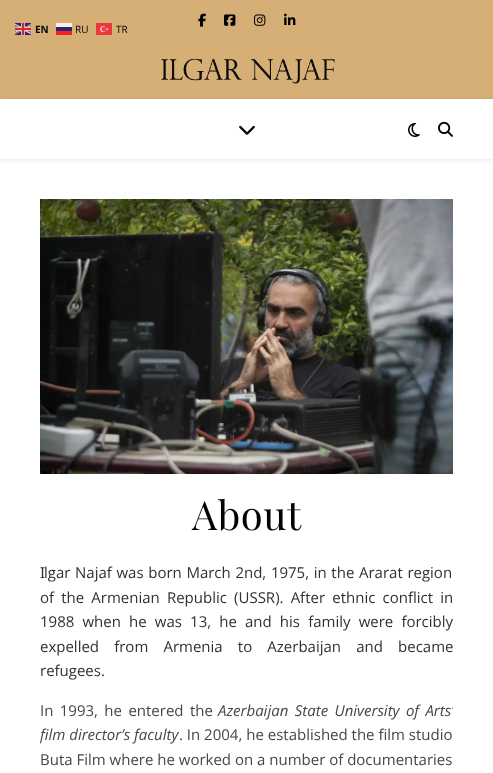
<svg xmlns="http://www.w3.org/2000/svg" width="493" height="773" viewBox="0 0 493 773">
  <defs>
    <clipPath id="clip1"><path d="M40 560h413v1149H40z"/></clipPath>
  </defs>
  <rect width="100%" height="100%" fill="#fff"/>
  <path d="M0 0h493v99H0z" fill="#d5af75"/>
  <image x="15" y="23" width="16" height="12" href="img/1.png"/>
  <path d="M56 23h16v4H56z" fill="#f7efe3"/>
  <path d="M56 27h16v4H56z" fill="#2b247c"/>
  <path d="M56 31h16v4H56z" fill="#f62418"/>
  <image x="96" y="23" width="16" height="12" href="img/2.png"/>
  <image x="198" y="13" width="8" height="14" href="img/3.png"/>
  <image x="224" y="14" width="12" height="12" href="img/4.png"/>
  <image x="254" y="14" width="12" height="12" href="img/5.png"/>
  <image x="284" y="13" width="12" height="12" href="img/6.png"/>
  <image x="161" y="58" width="174" height="26" href="img/7.png"/>
  <path d="M0 100h493v60H0z" fill="#0000001a" filter="blur(2.5px)"/>
  <path d="M0 99h493v60H0z" fill="#fff"/>
  <image x="239" y="125" width="16" height="10" href="img/8.png"/>
  <image x="408" y="123" width="12" height="14" href="img/9.png"/>
  <image x="438" y="121" width="15" height="16" href="img/10.png"/>
  <image x="40" y="199" width="413" height="275" href="img/11.png"/>
  <text x="35" y="33" font-family="Open Sans" font-size="10" font-weight="bold" fill="#030303">EN</text>
  <g font-family="Open Sans" font-size="10" fill="#030303">
    <text x="75" y="33">RU</text>
    <text x="116" y="33">TR</text>
  </g>
  <text x="192" y="530" font-family="Playfair Display" font-size="40" letter-spacing="0.5" fill="#030303">About</text>
  <text x="40" y="578" font-family="Noto Sans" font-size="15" fill="#313131">I</text>
  <g font-family="Open Sans" font-size="15" fill="#313131">
    <text x="44" y="578" word-spacing="0.75">lgar Najaf was born March 2nd, 1975, in the Ararat region</text>
    <text x="40" y="603" word-spacing="3.25">of the Armenian Republic (USSR). After ethnic conflict in</text>
    <text x="40" y="627" word-spacing="4.25">1988 when he was 13, he and his family were forcibly</text>
    <text x="40" y="652" word-spacing="11.25">expelled from Armenia to Azerbaijan and became</text>
    <text x="40" y="676">refugees.</text>
  </g>
  <text x="40" y="716" word-spacing="2.5" font-family="Open Sans" font-size="15" fill="#464646">In 1993, he entered the</text>
  <g clip-path="url(#clip1)">
    <g font-family="Open Sans" font-size="15" font-style="italic" fill="#464646">
      <text x="218" y="716" word-spacing="2.5">Azerbaijan State University of Arts’</text>
      <text x="40" y="740">film director’s faculty</text>
    </g>
  </g>
  <g font-family="Open Sans" font-size="15" fill="#464646">
    <text x="179" y="740">. In 2004, he established the film studio</text>
    <text x="40" y="765">Buta Film where he worked on a number of documentaries</text>
  </g>
</svg>
